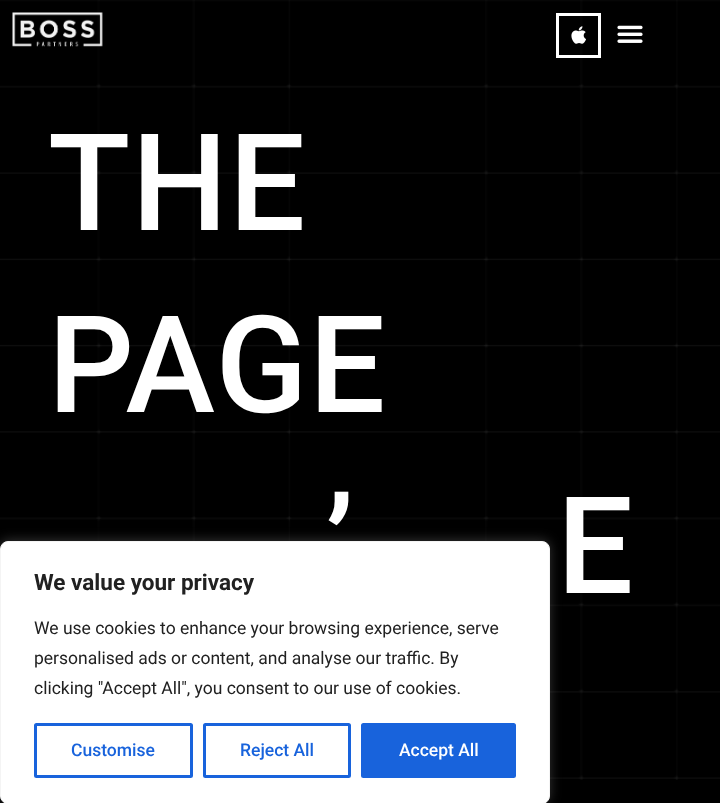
<svg xmlns="http://www.w3.org/2000/svg" width="720" height="803" viewBox="0 0 720 803">
  <rect width="100%" height="100%" fill="#000"/>
  <image x="0" y="0" width="720" height="780" href="img/1.png"/>
  <image x="12" y="12" width="91" height="35" href="img/2.png"/>
  <path d="M557.5 14.5h42v42H557.5z" fill="none" stroke="#fff" stroke-width="3"/>
  <image x="571" y="26" width="15" height="18" href="img/3.png"/>
  <image x="617" y="25" width="26" height="18" href="img/4.png"/>
  <rect y="540" width="550" height="263" rx="8" fill="#acabab4d" filter="blur(6px)"/>
  <rect x="0.5" y="541.5" width="549" height="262" rx="7.5" fill="#fff" stroke="#f4f4f4"/>
  <rect x="35.5" y="724.5" width="156" height="52" rx="1" fill="none" stroke="#1863dc" stroke-width="3"/>
  <rect x="204.5" y="724.5" width="145" height="52" rx="1" fill="none" stroke="#1863dc" stroke-width="3"/>
  <rect x="362.5" y="724.5" width="152" height="52" rx="1" fill="#1863dc" stroke="#1863dc" stroke-width="3"/>
  <g font-family="Roboto" font-size="135" font-weight="500" letter-spacing="1.5" fill="#fff">
    <text x="48" y="230">THE</text>
    <text x="48" y="412">PAGE</text>
    <text x="325" y="593">’</text>
    <text x="557" y="593">E</text>
  </g>
  <text x="34" y="590" font-family="Roboto" font-size="22.5" font-weight="bold" fill="#212121">We value your privacy</text>
  <g font-family="Roboto" font-size="17.5" fill="#212121">
    <text x="34" y="634">We use cookies to enhance your browsing experience, serve</text>
    <text x="34" y="664">personalised ads or content, and analyse our traffic. By</text>
    <text x="34" y="694">clicking "Accept All", you consent to our use of cookies.</text>
  </g>
  <g font-family="Roboto" font-size="17.5" font-weight="500" fill="#1863dc">
    <text x="71" y="756">Customise</text>
    <text x="240" y="756">Reject All</text>
  </g>
  <text x="399" y="756" font-family="Roboto" font-size="17.5" font-weight="500" fill="#fff">Accept All</text>
</svg>
